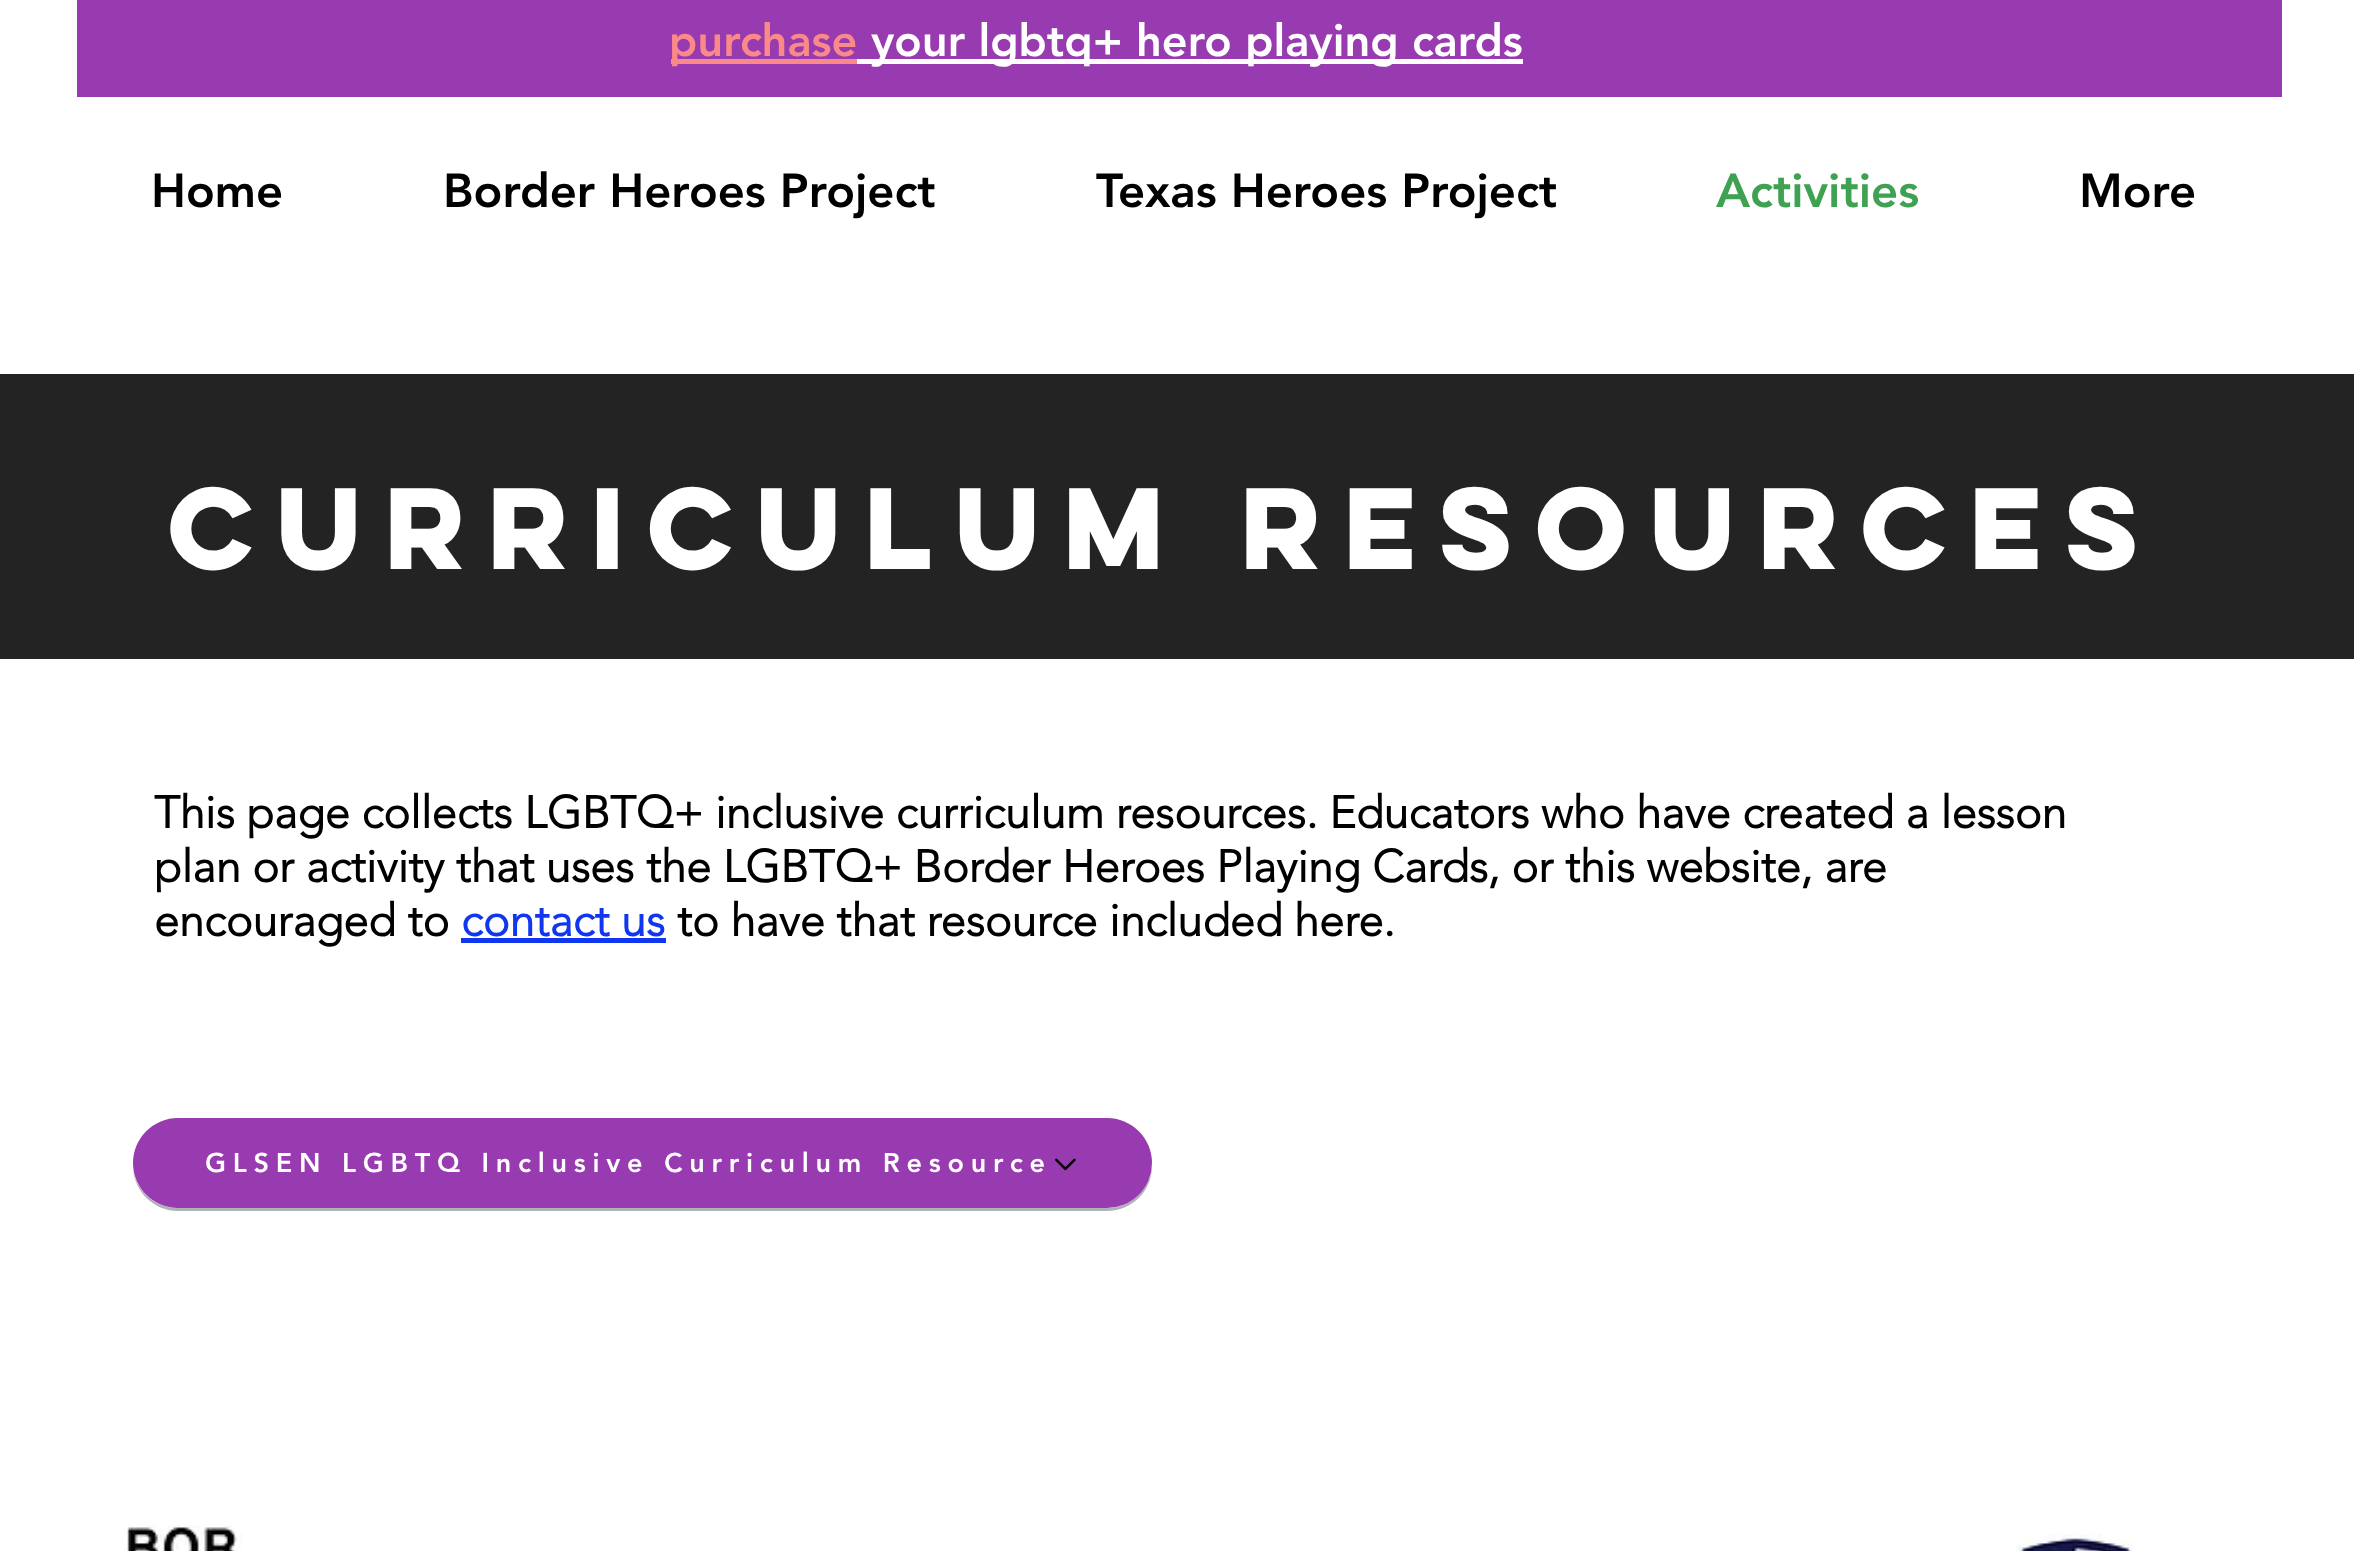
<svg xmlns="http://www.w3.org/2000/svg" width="2354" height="1551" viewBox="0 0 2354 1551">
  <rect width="100%" height="100%" fill="#fff"/>
  <path d="M77 0h2205v97H77z" fill="#983ab0"/>
  <path d="M671 59h186v5H671z" fill="#fa8989"/>
  <path d="M857 59h666v5H857z" fill="#fff"/>
  <path d="M0 374h2354v285H0z" fill="#242323"/>
  <path d="M461 938h205v5H461z" fill="#1136f0"/>
  <path d="M133 1169C135 1192 154 1211 178 1211H1107C1132 1211 1152 1191 1152 1166V1165C1151 1189 1131 1208 1107 1208H178C155 1208 136 1191 133 1169Z" fill="#afb3b6"/>
  <rect x="133" y="1118" width="1019" height="90" rx="45" fill="#983ab0"/>
  <image x="1055" y="1158" width="21" height="13" href="img/1.png"/>
  <image x="127" y="1525" width="116" height="26" href="img/2.png"/>
  <image x="2016" y="1534" width="118" height="17" href="img/3.png"/>
  <text x="669" y="56" font-family="'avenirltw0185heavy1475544'" font-size="45" font-weight="900" fill="#fa8989">purchase</text>
  <text x="871" y="56" font-family="'avenirltw0185heavy1475544'" font-size="45" font-weight="900" fill="#fff">your lgbtq+ hero playing cards</text>
  <g font-family="'avenirltw0185heavy1475544'" font-size="47.25" font-weight="900" fill="#000">
    <text x="151" y="207">Home</text>
    <text x="443" y="207">Border Heroes Project</text>
    <text x="1096" y="207">Texas Heroes Project</text>
  </g>
  <text x="1716" y="207" font-family="'avenirltw0185heavy1475544'" font-size="47.25" font-weight="900" fill="#3fa152">Activities</text>
  <text x="2079" y="207" font-family="'avenirltw0185heavy1475544'" font-size="47.25" font-weight="900" fill="#000">More</text>
  <text x="168" y="569" font-family="'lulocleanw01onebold'" font-size="103.5" font-weight="bold" fill="#fff">CUrriculum Resources</text>
  <g font-family="'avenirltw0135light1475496'" font-size="45" font-weight="bold" fill="#000">
    <text x="154" y="828">This page collects LGBTQ+ inclusive curriculum resources. Educators who have created a lesson</text>
    <text x="154" y="882">plan or activity that uses the LGBTQ+ Border Heroes Playing Cards, or this website, are</text>
    <text x="154" y="936">encouraged to</text>
  </g>
  <text x="461" y="936" font-family="'avenirltw0135light1475496'" font-size="45" font-weight="bold" fill="#1136f0">contact us</text>
  <text x="677" y="936" font-family="'avenirltw0135light1475496'" font-size="45" font-weight="bold" fill="#000">to have that resource included here.</text>
  <text x="205" y="1172" font-family="'avenirltw0185heavy1475544'" font-size="27" font-weight="900" letter-spacing="6.75" fill="#fff">GLSEN LGBTQ Inclusive Curriculum Resource</text>
</svg>
